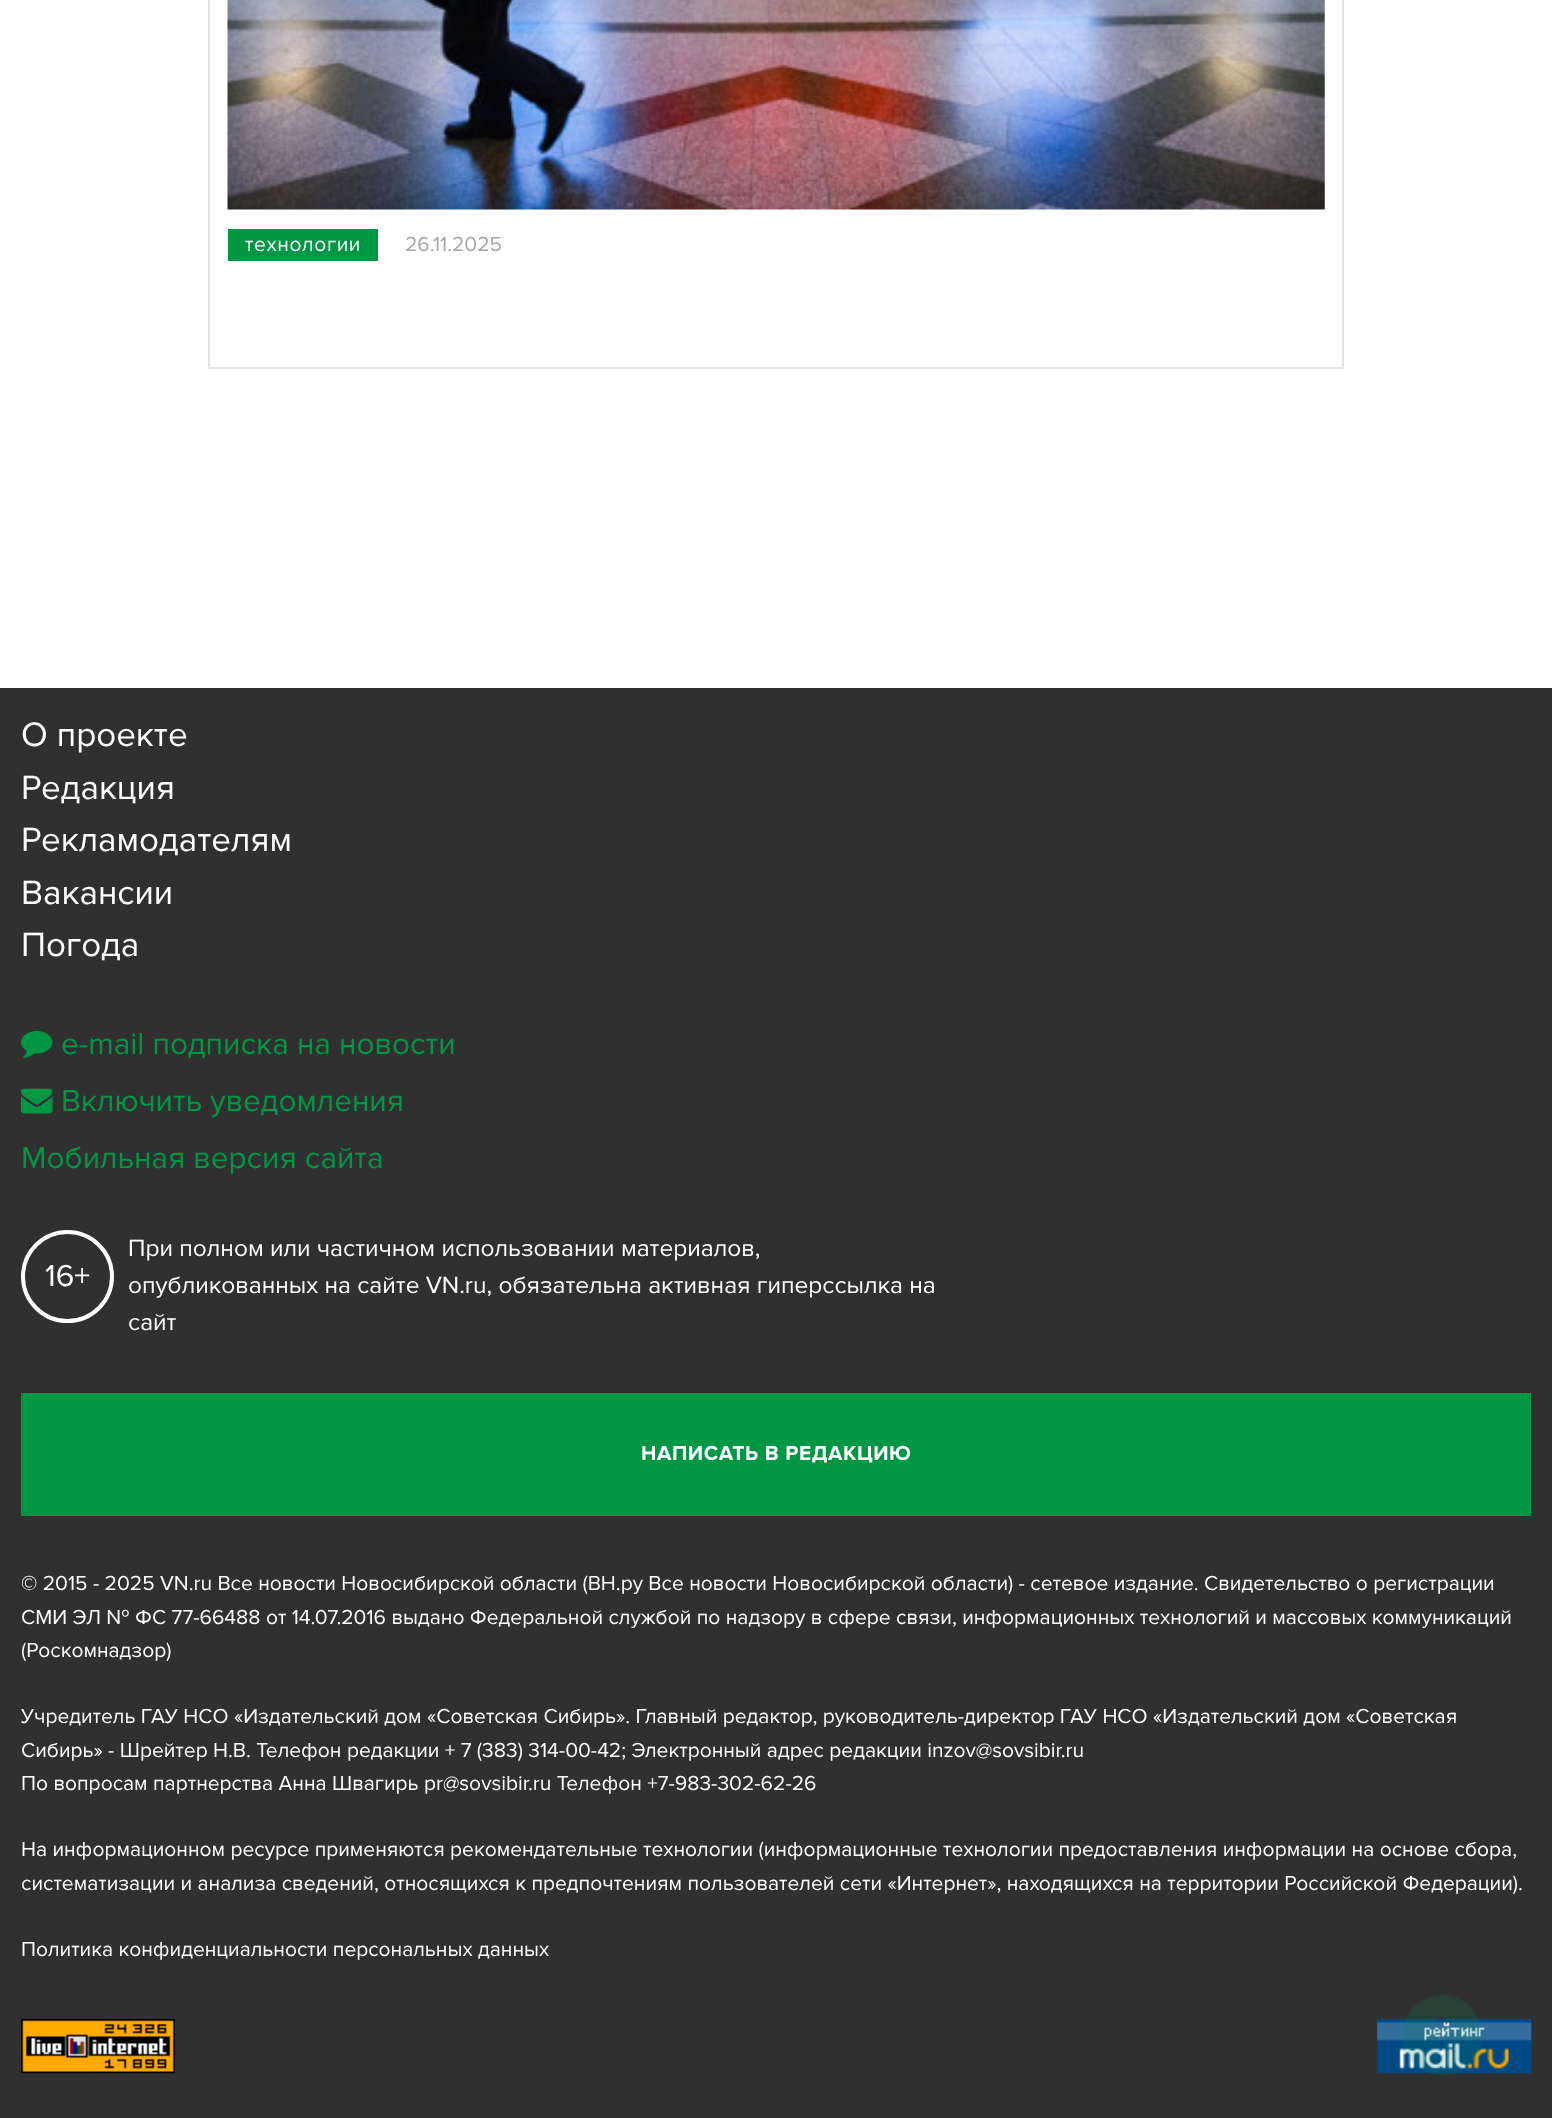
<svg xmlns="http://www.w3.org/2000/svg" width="1552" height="2118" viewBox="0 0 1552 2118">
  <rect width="100%" height="100%" fill="#fff"/>
  <path d="M209 -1h1134v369H209z" fill="none" stroke="#e5e5e5" stroke-width="2"/>
  <image x="227" y="0" width="1098" height="210" href="img/1.png"/>
  <path d="M228 229h150v32H228z" fill="#009744"/>
  <path d="M0 688h1552v1430H0z" fill="#303030"/>
  <image x="21" y="1031" width="32" height="27" href="img/2.png"/>
  <image x="21" y="1088" width="32" height="26" href="img/3.png"/>
  <circle cx="67.5" cy="1276.5" r="44.5" fill="none" stroke="#fff" stroke-width="4"/>
  <path d="M21 1393h1510v123H21z" fill="#009744"/>
  <image x="21" y="2019" width="154" height="55" href="img/4.png"/>
  <image x="1377" y="2019" width="155" height="55" href="img/5.png"/>
  <image x="1402" y="1995" width="81" height="81" href="img/6.png"/>
  <text x="245" y="251" font-family="Proxima Nova" font-size="21" letter-spacing="0.6" fill="#fff">технологии</text>
  <text x="405" y="251" font-family="Proxima Nova" font-size="21" fill="#a6a6a6">26.11.2025</text>
  <g font-family="Proxima Nova" font-size="35" fill="#fff">
    <text x="21" y="746">О проекте</text>
    <text x="21" y="799">Редакция</text>
    <text x="21" y="851">Рекламодателям</text>
    <text x="21" y="904">Вакансии</text>
    <text x="21" y="956">Погода</text>
  </g>
  <g font-family="Proxima Nova" font-size="31.5" fill="#009744">
    <text x="61" y="1054">e-mail подписка на новости</text>
    <text x="61" y="1111">Включить уведомления</text>
    <text x="21" y="1168">Мобильная версия сайта</text>
  </g>
  <text x="45" y="1286" font-family="Proxima Nova" font-size="31.5" fill="#fff">16+</text>
  <g font-family="Proxima Nova" font-size="24.5" fill="#fff">
    <text x="128" y="1256">При полном или частичном использовании материалов,</text>
    <text x="128" y="1293">опубликованных на сайте VN.ru, обязательна активная гиперссылка на</text>
    <text x="128" y="1330">сайт</text>
  </g>
  <text x="641" y="1460" font-family="Proxima Nova" font-size="21" font-weight="bold" letter-spacing="0.6" fill="#fff">НАПИСАТЬ В РЕДАКЦИЮ</text>
  <g font-family="Proxima Nova" font-size="21" fill="#fff">
    <text x="21" y="1590">© 2015 - 2025 VN.ru Все новости Новосибирской области (ВН.ру Все новости Новосибирской области) - сетевое издание. Свидетельство о регистрации</text>
    <text x="21" y="1624">СМИ ЭЛ № ФС 77-66488 от 14.07.2016 выдано Федеральной службой по надзору в сфере связи, информационных технологий и массовых коммуникаций</text>
    <text x="21" y="1657">(Роскомнадзор)</text>
    <text x="21" y="1723">Учредитель ГАУ НСО «Издательский дом «Советская Сибирь». Главный редактор, руководитель-директор ГАУ НСО «Издательский дом «Советская</text>
    <text x="21" y="1757">Сибирь» - Шрейтер Н.В. Телефон редакции + 7 (383) 314-00-42; Электронный адрес редакции inzov@sovsibir.ru</text>
    <text x="21" y="1790">По вопросам партнерства Анна Швагирь pr@sovsibir.ru Телефон +7-983-302-62-26</text>
    <text x="21" y="1856">На информационном ресурсе применяются рекомендательные технологии (информационные технологии предоставления информации на основе сбора,</text>
    <text x="21" y="1890">систематизации и анализа сведений, относящихся к предпочтениям пользователей сети «Интернет», находящихся на территории Российской Федерации).</text>
    <text x="21" y="1956">Политика конфиденциальности персональных данных</text>
  </g>
</svg>
